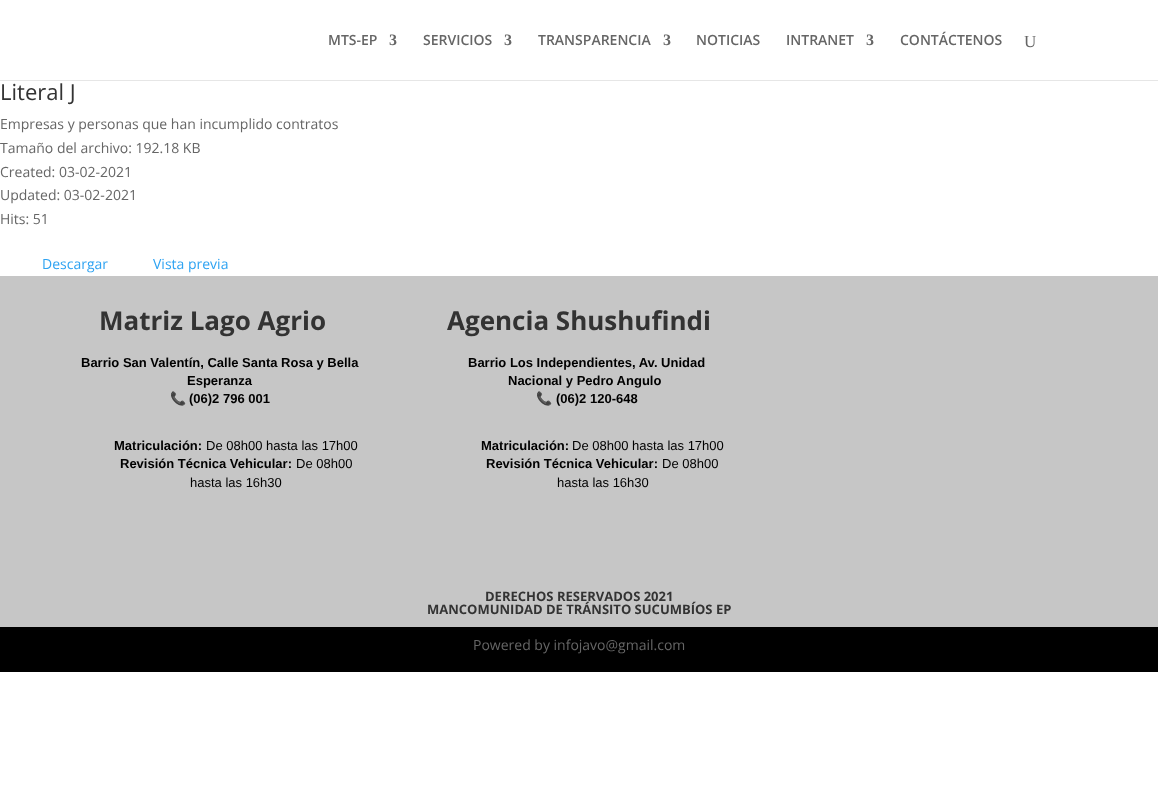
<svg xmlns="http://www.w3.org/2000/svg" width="1158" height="803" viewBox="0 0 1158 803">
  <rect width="100%" height="100%" fill="#fff"/>
  <path d="M0 80h1158v1H0z" fill="#e6e6e6"/>
  <path d="M0 276h1158v351H0z" fill="#c6c6c6"/>
  <path d="M0 627h1158v45H0z" fill="#000"/>
  <text x="328" y="45" font-family="Open Sans" font-size="14" font-weight="600" fill="#666">MTS-EP</text>
  <text x="389" y="45" font-family="Liberation Serif" font-size="16" font-weight="bold" fill="#666">3</text>
  <text x="423" y="45" font-family="Open Sans" font-size="14" font-weight="600" fill="#666">SERVICIOS</text>
  <text x="504" y="45" font-family="Liberation Serif" font-size="16" font-weight="bold" fill="#666">3</text>
  <text x="538" y="45" font-family="Open Sans" font-size="14" font-weight="600" fill="#666">TRANSPARENCIA</text>
  <text x="663" y="45" font-family="Liberation Serif" font-size="16" font-weight="bold" fill="#666">3</text>
  <g font-family="Open Sans" font-size="14" font-weight="600" fill="#666">
    <text x="696" y="45">NOTICIAS</text>
    <text x="786" y="45">INTRANET</text>
  </g>
  <text x="866" y="45" font-family="Liberation Serif" font-size="16" font-weight="bold" fill="#666">3</text>
  <text x="900" y="45" font-family="Open Sans" font-size="14" font-weight="600" fill="#666">CONTÁCTENOS</text>
  <text x="1024" y="47" font-family="Liberation Serif" font-size="17" fill="#666">U</text>
  <text x="0" y="100" font-family="Open Sans" font-size="22" fill="#333">Literal J</text>
  <g font-family="Open Sans" font-size="14" fill="#666">
    <text x="0" y="129">Empresas y personas que han incumplido contratos</text>
    <text x="0" y="153">Tamaño del archivo: 192.18 KB</text>
    <text x="0" y="177">Created: 03-02-2021</text>
    <text x="0" y="200">Updated: 03-02-2021</text>
    <text x="0" y="224">Hits: 51</text>
  </g>
  <g font-family="Open Sans" font-size="14" fill="#2ea3f2">
    <text x="42" y="269">Descargar</text>
    <text x="153" y="269">Vista previa</text>
  </g>
  <text x="99" y="330" font-family="Open Sans" font-size="26" font-weight="bold" fill="#333">Matriz Lago Agrio</text>
  <g font-family="Liberation Sans" font-size="13" font-weight="bold" fill="#000">
    <text x="81" y="367">Barrio San Valentín, Calle Santa Rosa y Bella</text>
    <text x="187" y="385">Esperanza</text>
  </g>
  <text x="170" y="403" font-family="Noto Color Emoji" font-size="13" fill="#000">📞</text>
  <g font-family="Liberation Sans" font-size="13" font-weight="bold" fill="#000">
    <text x="189" y="403">(06)2 796 001</text>
    <text x="114" y="450">Matriculación:</text>
  </g>
  <text x="206" y="450" font-family="Liberation Sans" font-size="13" fill="#000">De 08h00 hasta las 17h00</text>
  <text x="120" y="468" font-family="Liberation Sans" font-size="13" font-weight="bold" fill="#000">Revisión Técnica Vehicular:</text>
  <g font-family="Liberation Sans" font-size="13" fill="#000">
    <text x="296" y="468">De 08h00</text>
    <text x="190" y="487">hasta las 16h30</text>
  </g>
  <text x="447" y="330" font-family="Open Sans" font-size="26" font-weight="bold" fill="#333">Agencia Shushufindi</text>
  <g font-family="Liberation Sans" font-size="13" font-weight="bold" fill="#000">
    <text x="468" y="367">Barrio Los Independientes, Av. Unidad</text>
    <text x="508" y="385">Nacional y Pedro Angulo</text>
  </g>
  <text x="536" y="403" font-family="Noto Color Emoji" font-size="13" fill="#000">📞</text>
  <g font-family="Liberation Sans" font-size="13" font-weight="bold" fill="#000">
    <text x="556" y="403">(06)2 120-648</text>
    <text x="481" y="450">Matriculación:</text>
  </g>
  <text x="572" y="450" font-family="Liberation Sans" font-size="13" fill="#000">De 08h00 hasta las 17h00</text>
  <text x="486" y="468" font-family="Liberation Sans" font-size="13" font-weight="bold" fill="#000">Revisión Técnica Vehicular:</text>
  <g font-family="Liberation Sans" font-size="13" fill="#000">
    <text x="662" y="468">De 08h00</text>
    <text x="557" y="487">hasta las 16h30</text>
  </g>
  <g font-family="Open Sans" font-size="13" font-weight="bold" fill="#333">
    <text x="485" y="601">DERECHOS RESERVADOS 2021</text>
    <text x="427" y="614">MANCOMUNIDAD DE TRÁNSITO SUCUMBÍOS EP</text>
  </g>
  <text x="473" y="650" font-family="Open Sans" font-size="14" fill="#666">Powered by infojavo@gmail.com</text>
</svg>
